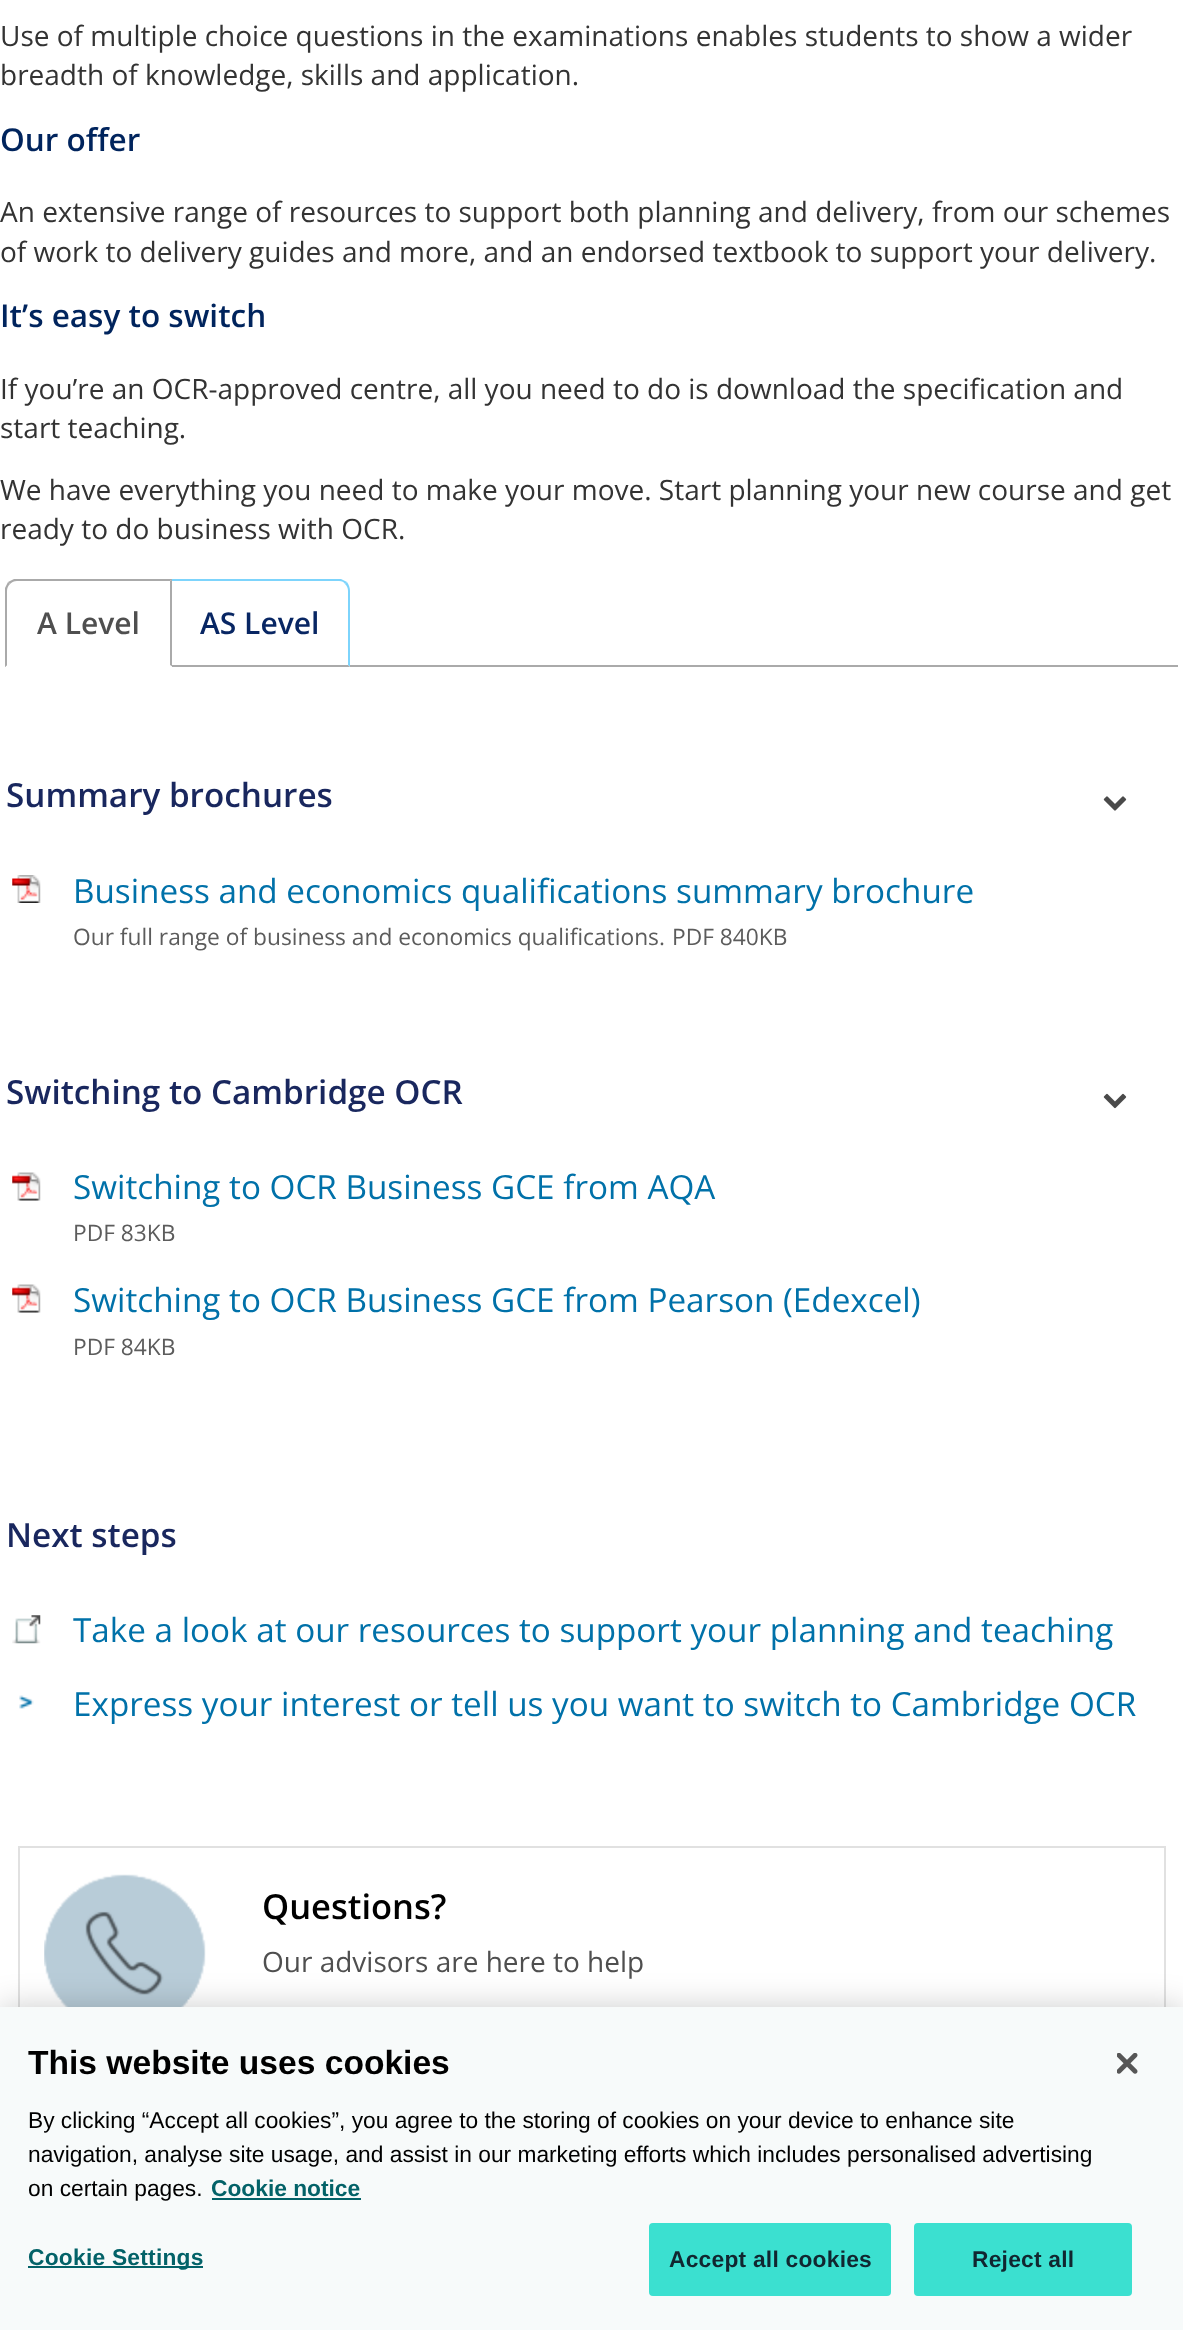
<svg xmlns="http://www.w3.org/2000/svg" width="1183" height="2330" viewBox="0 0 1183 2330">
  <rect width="100%" height="100%" fill="#fff"/>
  <path d="M5 665h1173v2H5z" fill="#aaa"/>
  <path d="M17 581C14 581 12 582 10 584L8 582C10 581 12 580 14 579H173L170 581Z" fill="#aaa"/>
  <path d="M173 579V667L170 665V581Z" fill="#aaa"/>
  <path d="M173 667H5L7 665H170Z" fill="#fff"/>
  <path d="M5 667V588C6 586 7 584 8 582L10 584C8 586 7 588 7 591V665Z" fill="#aaa"/>
  <path d="M172 579H339C345 579 350 584 350 590V667H172Z" fill="#fff"/>
  <path d="M172 581V579H341C343 580 345 581 347 582L345 584C344 582 342 581 339 581Z" fill="#7dd4fc"/>
  <path d="M348 665V591C348 588 347 586 345 584L347 582C349 585 350 588 350 591V667Z" fill="#7dd4fc"/>
  <path d="M350 667H172V665H348Z" fill="#aaa"/>
  <image x="1103" y="796" width="24" height="15" href="img/1.png"/>
  <image x="12" y="875" width="29" height="28" href="img/2.png"/>
  <image x="1103" y="1093" width="24" height="16" href="img/3.png"/>
  <image x="12" y="1172" width="29" height="29" href="img/4.png"/>
  <image x="12" y="1284" width="29" height="29" href="img/4.png"/>
  <image x="12" y="1615" width="29" height="29" href="img/5.png"/>
  <image x="19" y="1695" width="15" height="14" href="img/6.png"/>
  <path d="M19 1847h1146v231H19z" fill="none" stroke="#e1e1e1" stroke-width="2"/>
  <image x="44" y="1874" width="162" height="133" href="img/7.png"/>
  <path d="M0 2007h1183v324H0z" fill="#00000033" filter="blur(16px)"/>
  <path d="M0 2007h1183v323H0z" fill="#f7fafa"/>
  <path d="M212 2198h149v2H212z" fill="#036268"/>
  <path d="M28 2266h175v2H28z" fill="#036268"/>
  <rect x="650" y="2224" width="240" height="71" rx="3" fill="#3be0d0" stroke="#3be0d0" stroke-width="2"/>
  <rect x="915" y="2224" width="216" height="71" rx="3" fill="#3be0d0" stroke="#3be0d0" stroke-width="2"/>
  <image x="1117" y="2053" width="21" height="21" href="img/8.png"/>
  <g font-family="Open Sans" font-size="28" fill="#333">
    <text x="0" y="46">Use of multiple choice questions in the examinations enables students to show a wider</text>
    <text x="0" y="85">breadth of knowledge, skills and application.</text>
  </g>
  <text x="0" y="151" font-family="Open Sans" font-size="31.5" font-weight="600" fill="#00245d">Our offer</text>
  <g font-family="Open Sans" font-size="28" fill="#333">
    <text x="0" y="222">An extensive range of resources to support both planning and delivery, from our schemes</text>
    <text x="0" y="262">of work to delivery guides and more, and an endorsed textbook to support your delivery.</text>
  </g>
  <text x="0" y="327" font-family="Open Sans" font-size="31.5" font-weight="600" fill="#00245d">It’s easy to switch</text>
  <g font-family="Open Sans" font-size="28" fill="#333">
    <text x="0" y="399">If you’re an OCR-approved centre, all you need to do is download the specification and</text>
    <text x="0" y="438">start teaching.</text>
    <text x="0" y="500">We have everything you need to make your move. Start planning your new course and get</text>
    <text x="0" y="539">ready to do business with OCR.</text>
  </g>
  <text x="37" y="634" font-family="Open Sans" font-size="30" font-weight="600" fill="#4f4f4f">A Level</text>
  <text x="200" y="634" font-family="Open Sans" font-size="30" font-weight="600" fill="#082663">AS Level</text>
  <text x="6" y="807" font-family="Open Sans" font-size="33.25" font-weight="600" fill="#19275e">Summary brochures</text>
  <text x="73" y="903" font-family="Open Sans" font-size="33.25" fill="#0071a9">Business and economics qualifications summary brochure</text>
  <g font-family="Open Sans" font-size="22.75" fill="#5c5c5c">
    <text x="73" y="945">Our full range of business and economics qualifications.</text>
    <text x="672" y="945">PDF 840KB</text>
  </g>
  <text x="6" y="1104" font-family="Open Sans" font-size="33.25" font-weight="600" fill="#19275e">Switching to Cambridge OCR</text>
  <text x="73" y="1199" font-family="Open Sans" font-size="33.25" fill="#0071a9">Switching to OCR Business GCE from AQA</text>
  <text x="73" y="1241" font-family="Open Sans" font-size="22.75" fill="#5c5c5c">PDF 83KB</text>
  <text x="73" y="1312" font-family="Open Sans" font-size="33.25" fill="#0071a9">Switching to OCR Business GCE from Pearson (Edexcel)</text>
  <text x="73" y="1355" font-family="Open Sans" font-size="22.75" fill="#5c5c5c">PDF 84KB</text>
  <text x="6" y="1547" font-family="Open Sans" font-size="33.25" font-weight="600" fill="#19275e">Next steps</text>
  <g font-family="Open Sans" font-size="33.25" fill="#0071a9">
    <text x="73" y="1642">Take a look at our resources to support your planning and teaching</text>
    <text x="73" y="1716">Express your interest or tell us you want to switch to Cambridge OCR</text>
  </g>
  <text x="262" y="1919" font-family="Open Sans" font-size="34.5" font-weight="600" fill="#000">Questions?</text>
  <text x="262" y="1972" font-family="Open Sans" font-size="28" fill="#4f4f4f">Our advisors are here to help</text>
  <text x="28" y="2074" font-family="Liberation Sans" font-size="33.6" font-weight="bold" fill="#000">This website uses cookies</text>
  <g font-family="Liberation Sans" font-size="22.75" fill="#000">
    <text x="28" y="2128">By clicking “Accept all cookies”, you agree to the storing of cookies on your device to enhance site</text>
    <text x="28" y="2162">navigation, analyse site usage, and assist in our marketing efforts which includes personalised advertising</text>
    <text x="28" y="2196">on certain pages.</text>
  </g>
  <text x="211" y="2196" font-family="Liberation Sans" font-size="22.75" font-weight="bold" fill="#036268">Cookie notice</text>
  <text x="28" y="2265" font-family="Liberation Sans" font-size="22.75" font-weight="bold" letter-spacing="0.25" fill="#036268">Cookie Settings</text>
  <g font-family="Liberation Sans" font-size="22.75" font-weight="bold" letter-spacing="0.25" fill="#112730">
    <text x="669" y="2267">Accept all cookies</text>
    <text x="972" y="2267">Reject all</text>
  </g>
</svg>
